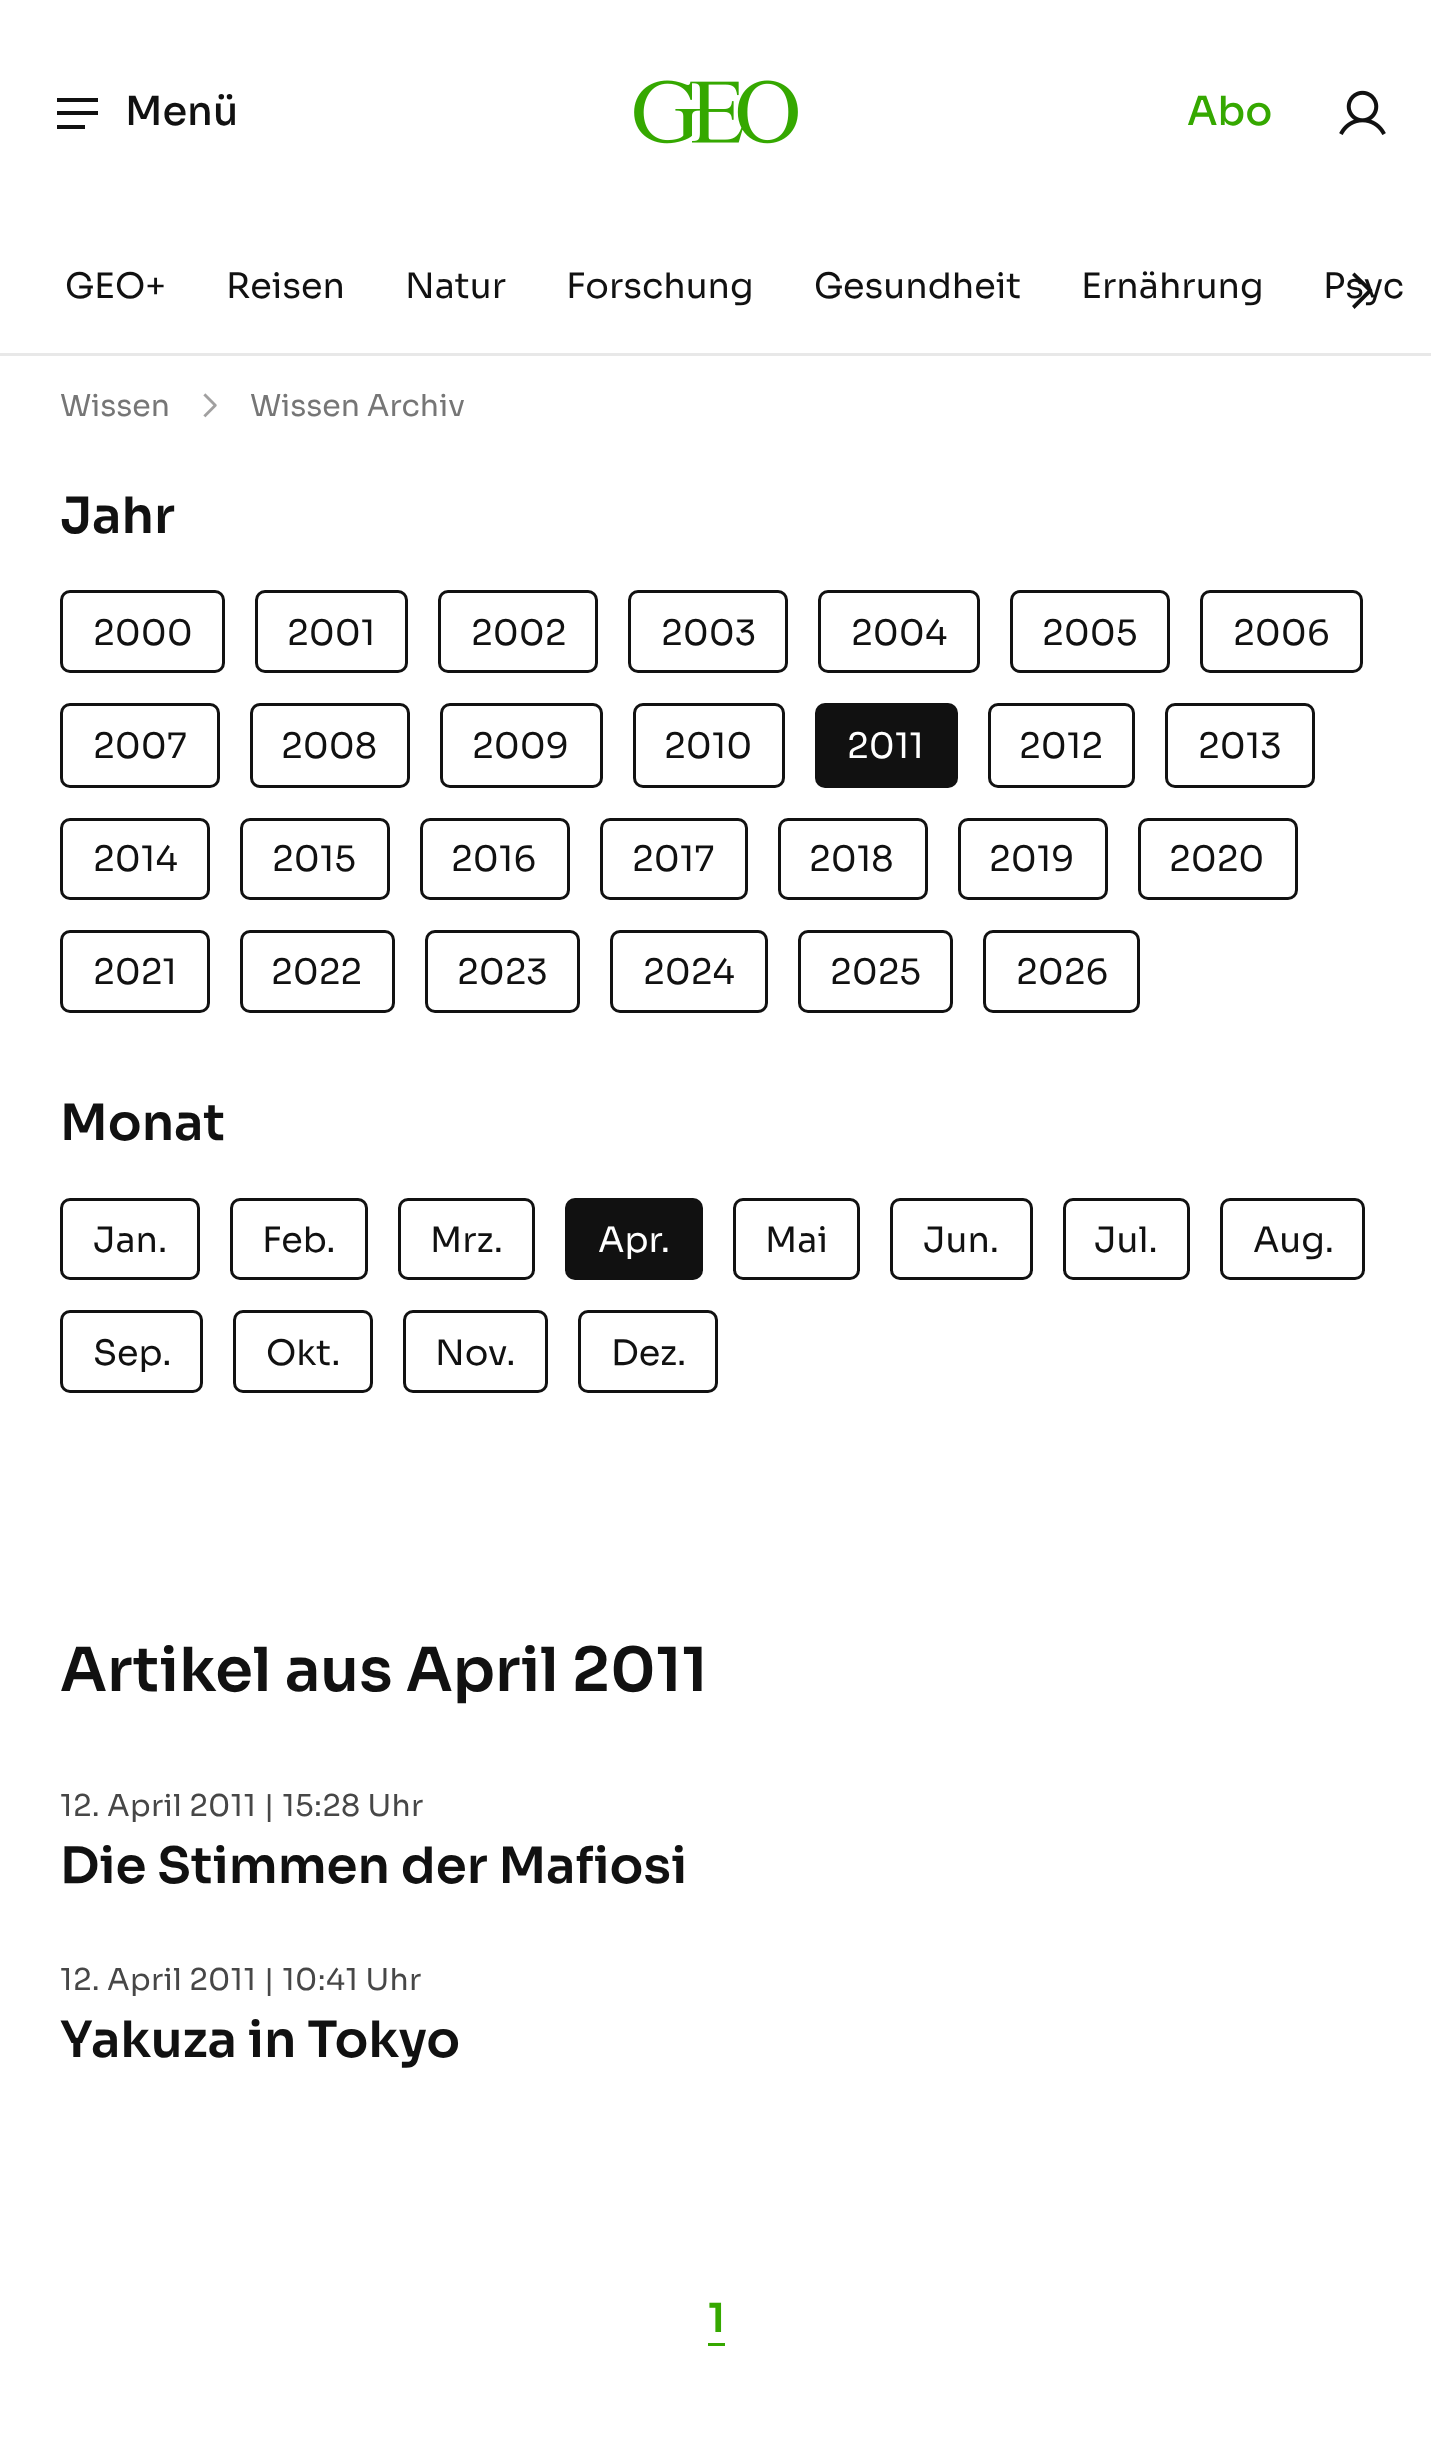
<svg xmlns="http://www.w3.org/2000/svg" width="1431" height="2464" viewBox="0 0 1431 2464">
  <rect width="100%" height="100%" fill="#fff"/>
  <path d="M57 98H98V102H57ZM57 111H98V115H57ZM85 125H57V129H85Z" fill="#111"/>
  <image x="634" y="80" width="164" height="64" href="img/1.png"/>
  <image x="1339" y="90" width="47" height="45" href="img/2.png"/>
  <path d="M0 353h1431v3H0z" fill="#e8e8e8"/>
  <path d="M1354.5 272.5L1369 286.5C1373.5 291 1373.5 290 1369 294.5L1354.5 309L1352 306L1367.5 290.5L1352 275Z" fill="#111"/>
  <image x="203" y="393" width="14" height="25" href="img/3.png"/>
  <rect x="61.5" y="591.5" width="162" height="80" rx="8.5" fill="none" stroke="#111" stroke-width="3"/>
  <rect x="256.5" y="591.5" width="150" height="80" rx="8.5" fill="none" stroke="#111" stroke-width="3"/>
  <rect x="439.5" y="591.5" width="157" height="80" rx="8.5" fill="none" stroke="#111" stroke-width="3"/>
  <rect x="629.5" y="591.5" width="157" height="80" rx="8.5" fill="none" stroke="#111" stroke-width="3"/>
  <rect x="819.5" y="591.5" width="159" height="80" rx="8.5" fill="none" stroke="#111" stroke-width="3"/>
  <rect x="1011.5" y="591.5" width="157" height="80" rx="8.5" fill="none" stroke="#111" stroke-width="3"/>
  <rect x="1201.5" y="591.5" width="160" height="80" rx="8.5" fill="none" stroke="#111" stroke-width="3"/>
  <rect x="61.5" y="704.5" width="157" height="82" rx="8.5" fill="none" stroke="#111" stroke-width="3"/>
  <rect x="251.5" y="704.5" width="157" height="82" rx="8.5" fill="none" stroke="#111" stroke-width="3"/>
  <rect x="441.5" y="704.5" width="160" height="82" rx="8.5" fill="none" stroke="#111" stroke-width="3"/>
  <rect x="634.5" y="704.5" width="149" height="82" rx="8.5" fill="none" stroke="#111" stroke-width="3"/>
  <rect x="815" y="703" width="143" height="85" rx="10" fill="#111"/>
  <rect x="989.5" y="704.5" width="144" height="82" rx="8.5" fill="none" stroke="#111" stroke-width="3"/>
  <rect x="1166.5" y="704.5" width="147" height="82" rx="8.5" fill="none" stroke="#111" stroke-width="3"/>
  <rect x="61.5" y="819.5" width="147" height="79" rx="8.5" fill="none" stroke="#111" stroke-width="3"/>
  <rect x="241.5" y="819.5" width="147" height="79" rx="8.5" fill="none" stroke="#111" stroke-width="3"/>
  <rect x="421.5" y="819.5" width="147" height="79" rx="8.5" fill="none" stroke="#111" stroke-width="3"/>
  <rect x="601.5" y="819.5" width="145" height="79" rx="8.5" fill="none" stroke="#111" stroke-width="3"/>
  <rect x="779.5" y="819.5" width="147" height="79" rx="8.5" fill="none" stroke="#111" stroke-width="3"/>
  <rect x="959.5" y="819.5" width="147" height="79" rx="8.5" fill="none" stroke="#111" stroke-width="3"/>
  <rect x="1139.5" y="819.5" width="157" height="79" rx="8.5" fill="none" stroke="#111" stroke-width="3"/>
  <rect x="61.5" y="931.5" width="147" height="80" rx="8.5" fill="none" stroke="#111" stroke-width="3"/>
  <rect x="241.5" y="931.5" width="152" height="80" rx="8.5" fill="none" stroke="#111" stroke-width="3"/>
  <rect x="426.5" y="931.5" width="152" height="80" rx="8.5" fill="none" stroke="#111" stroke-width="3"/>
  <rect x="611.5" y="931.5" width="155" height="80" rx="8.5" fill="none" stroke="#111" stroke-width="3"/>
  <rect x="799.5" y="931.5" width="152" height="80" rx="8.5" fill="none" stroke="#111" stroke-width="3"/>
  <rect x="984.5" y="931.5" width="154" height="80" rx="8.5" fill="none" stroke="#111" stroke-width="3"/>
  <rect x="61.5" y="1199.5" width="137" height="79" rx="8.5" fill="none" stroke="#111" stroke-width="3"/>
  <rect x="231.5" y="1199.5" width="135" height="79" rx="8.5" fill="none" stroke="#111" stroke-width="3"/>
  <rect x="399.5" y="1199.5" width="134" height="79" rx="8.5" fill="none" stroke="#111" stroke-width="3"/>
  <rect x="565" y="1198" width="138" height="82" rx="10" fill="#111"/>
  <rect x="734.5" y="1199.5" width="124" height="79" rx="8.5" fill="none" stroke="#111" stroke-width="3"/>
  <rect x="891.5" y="1199.5" width="140" height="79" rx="8.5" fill="none" stroke="#111" stroke-width="3"/>
  <rect x="1064.5" y="1199.5" width="124" height="79" rx="8.5" fill="none" stroke="#111" stroke-width="3"/>
  <rect x="1221.5" y="1199.5" width="142" height="79" rx="8.5" fill="none" stroke="#111" stroke-width="3"/>
  <rect x="61.5" y="1311.5" width="140" height="80" rx="8.5" fill="none" stroke="#111" stroke-width="3"/>
  <rect x="234.5" y="1311.5" width="137" height="80" rx="8.5" fill="none" stroke="#111" stroke-width="3"/>
  <rect x="404.5" y="1311.5" width="142" height="80" rx="8.5" fill="none" stroke="#111" stroke-width="3"/>
  <rect x="579.5" y="1311.5" width="137" height="80" rx="8.5" fill="none" stroke="#111" stroke-width="3"/>
  <path d="M708 2343h17v3H708z" fill="#35a800"/>
  <text x="125" y="125" font-family="Sora" font-size="40" font-weight="500" fill="#111">Menü</text>
  <text x="1187" y="125" font-family="Sora" font-size="40" font-weight="500" fill="#35a800">Abo</text>
  <g font-family="Sora" font-size="35" fill="#111">
    <text x="65" y="298">GEO+</text>
    <text x="226" y="298">Reisen</text>
    <text x="405" y="298">Natur</text>
    <text x="566" y="298">Forschung</text>
    <text x="814" y="298">Gesundheit</text>
    <text x="1081" y="298">Ernährung</text>
    <text x="1323" y="298">Psyc</text>
  </g>
  <g font-family="Sora" font-size="30" fill="#767676">
    <text x="60" y="416">Wissen</text>
    <text x="250" y="416">Wissen Archiv</text>
  </g>
  <text x="60" y="533" font-family="Sora" font-size="50" font-weight="600" fill="#111">Jahr</text>
  <g font-family="Sora" font-size="35" fill="#111">
    <text x="93" y="645">2000</text>
    <text x="287" y="645">2001</text>
    <text x="471" y="645">2002</text>
    <text x="661" y="645">2003</text>
    <text x="851" y="645">2004</text>
    <text x="1042" y="645">2005</text>
    <text x="1233" y="645">2006</text>
    <text x="93" y="758">2007</text>
    <text x="281" y="758">2008</text>
    <text x="472" y="758">2009</text>
    <text x="664" y="758">2010</text>
  </g>
  <text x="847" y="758" font-family="Sora" font-size="35" fill="#fff">2011</text>
  <g font-family="Sora" font-size="35" fill="#111">
    <text x="1019" y="758">2012</text>
    <text x="1198" y="758">2013</text>
    <text x="93" y="871">2014</text>
    <text x="272" y="871">2015</text>
    <text x="451" y="871">2016</text>
    <text x="632" y="871">2017</text>
    <text x="809" y="871">2018</text>
    <text x="989" y="871">2019</text>
    <text x="1169" y="871">2020</text>
    <text x="93" y="984">2021</text>
    <text x="271" y="984">2022</text>
    <text x="457" y="984">2023</text>
    <text x="643" y="984">2024</text>
    <text x="830" y="984">2025</text>
    <text x="1016" y="984">2026</text>
  </g>
  <text x="60" y="1140" font-family="Sora" font-size="50" font-weight="600" fill="#111">Monat</text>
  <g font-family="Sora" font-size="35" fill="#111">
    <text x="93" y="1252">Jan.</text>
    <text x="262" y="1252">Feb.</text>
    <text x="430" y="1252">Mrz.</text>
  </g>
  <text x="598" y="1252" font-family="Sora" font-size="35" fill="#fff">Apr.</text>
  <g font-family="Sora" font-size="35" fill="#111">
    <text x="765" y="1252">Mai</text>
    <text x="923" y="1252">Jun.</text>
    <text x="1094" y="1252">Jul.</text>
    <text x="1253" y="1252">Aug.</text>
    <text x="93" y="1365">Sep.</text>
    <text x="266" y="1365">Okt.</text>
    <text x="435" y="1365">Nov.</text>
    <text x="611" y="1365">Dez.</text>
  </g>
  <text x="60" y="1691" font-family="Sora" font-size="60.75" font-weight="600" fill="#111">Artikel aus April 2011</text>
  <text x="60" y="1816" font-family="Sora" font-size="30" letter-spacing="0.3" fill="#474747">12. April 2011 | 15:28 Uhr</text>
  <text x="60" y="1883" font-family="Sora" font-size="50" font-weight="600" fill="#111">Die Stimmen der Mafiosi</text>
  <text x="60" y="1990" font-family="Sora" font-size="30" letter-spacing="0.3" fill="#474747">12. April 2011 | 10:41 Uhr</text>
  <text x="60" y="2057" font-family="Sora" font-size="50" font-weight="600" fill="#111">Yakuza in Tokyo</text>
  <text x="708" y="2332" font-family="Sora" font-size="40" font-weight="600" fill="#35a800">1</text>
</svg>
